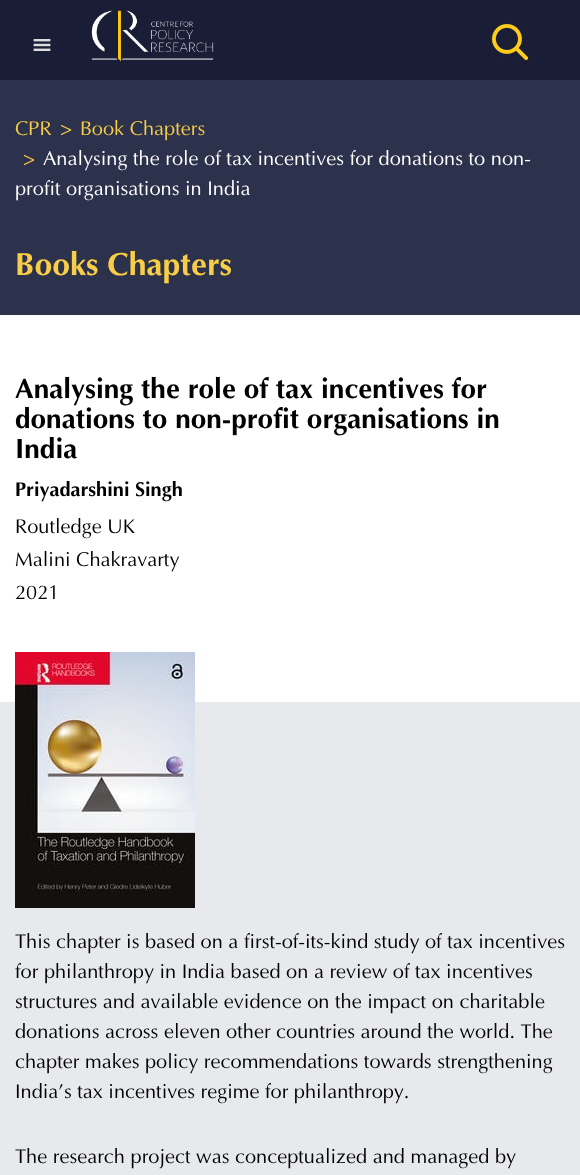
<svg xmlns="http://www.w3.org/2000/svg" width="580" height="1175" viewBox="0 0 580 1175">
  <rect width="100%" height="100%" fill="#fff"/>
  <path d="M0 0h580v80H0z" fill="#191e36"/>
  <image x="33" y="39" width="18" height="12" href="img/1.png"/>
  <image x="91" y="10" width="123" height="52" href="img/2.png"/>
  <image x="491" y="23" width="38" height="38" href="img/3.png"/>
  <path d="M0 80h580v235H0z" fill="#2c314c"/>
  <path d="M0 702h580v473H0z" fill="#e8e9ec"/>
  <image x="15" y="652" width="180" height="256" href="img/4.png"/>
  <g font-family="Optima" font-size="20" fill="#f8cd47">
    <text x="15" y="135">CPR</text>
    <text x="60" y="135">&gt;</text>
    <text x="80" y="135">Book Chapters</text>
    <text x="23" y="165">&gt;</text>
  </g>
  <g font-family="Optima" font-size="20" fill="#fff">
    <text x="43" y="165">Analysing the role of tax incentives for donations to non-</text>
    <text x="15" y="195">profit organisations in India</text>
  </g>
  <text x="15" y="275" font-family="Optima" font-size="32" font-weight="bold" fill="#f8cd47">Books Chapters</text>
  <g font-family="Optima" font-size="28" font-weight="bold" fill="#000">
    <text x="15" y="398">Analysing the role of tax incentives for</text>
    <text x="15" y="428">donations to non-profit organisations in</text>
    <text x="15" y="458">India</text>
  </g>
  <text x="15" y="496" font-family="Optima" font-size="20" font-weight="bold" fill="#000">Priyadarshini Singh</text>
  <g font-family="Optima" font-size="20" fill="#000">
    <text x="15" y="533">Routledge UK</text>
    <text x="15" y="566">Malini Chakravarty</text>
    <text x="15" y="599">2021</text>
    <text x="15" y="948">This chapter is based on a first-of-its-kind study of tax incentives</text>
    <text x="15" y="978">for philanthropy in India based on a review of tax incentives</text>
    <text x="15" y="1008">structures and available evidence on the impact on charitable</text>
    <text x="15" y="1038">donations across eleven other countries around the world. The</text>
    <text x="15" y="1068">chapter makes policy recommendations towards strengthening</text>
    <text x="15" y="1098">India’s tax incentives regime for philanthropy.</text>
    <text x="15" y="1163">The research project was conceptualized and managed by</text>
  </g>
</svg>
